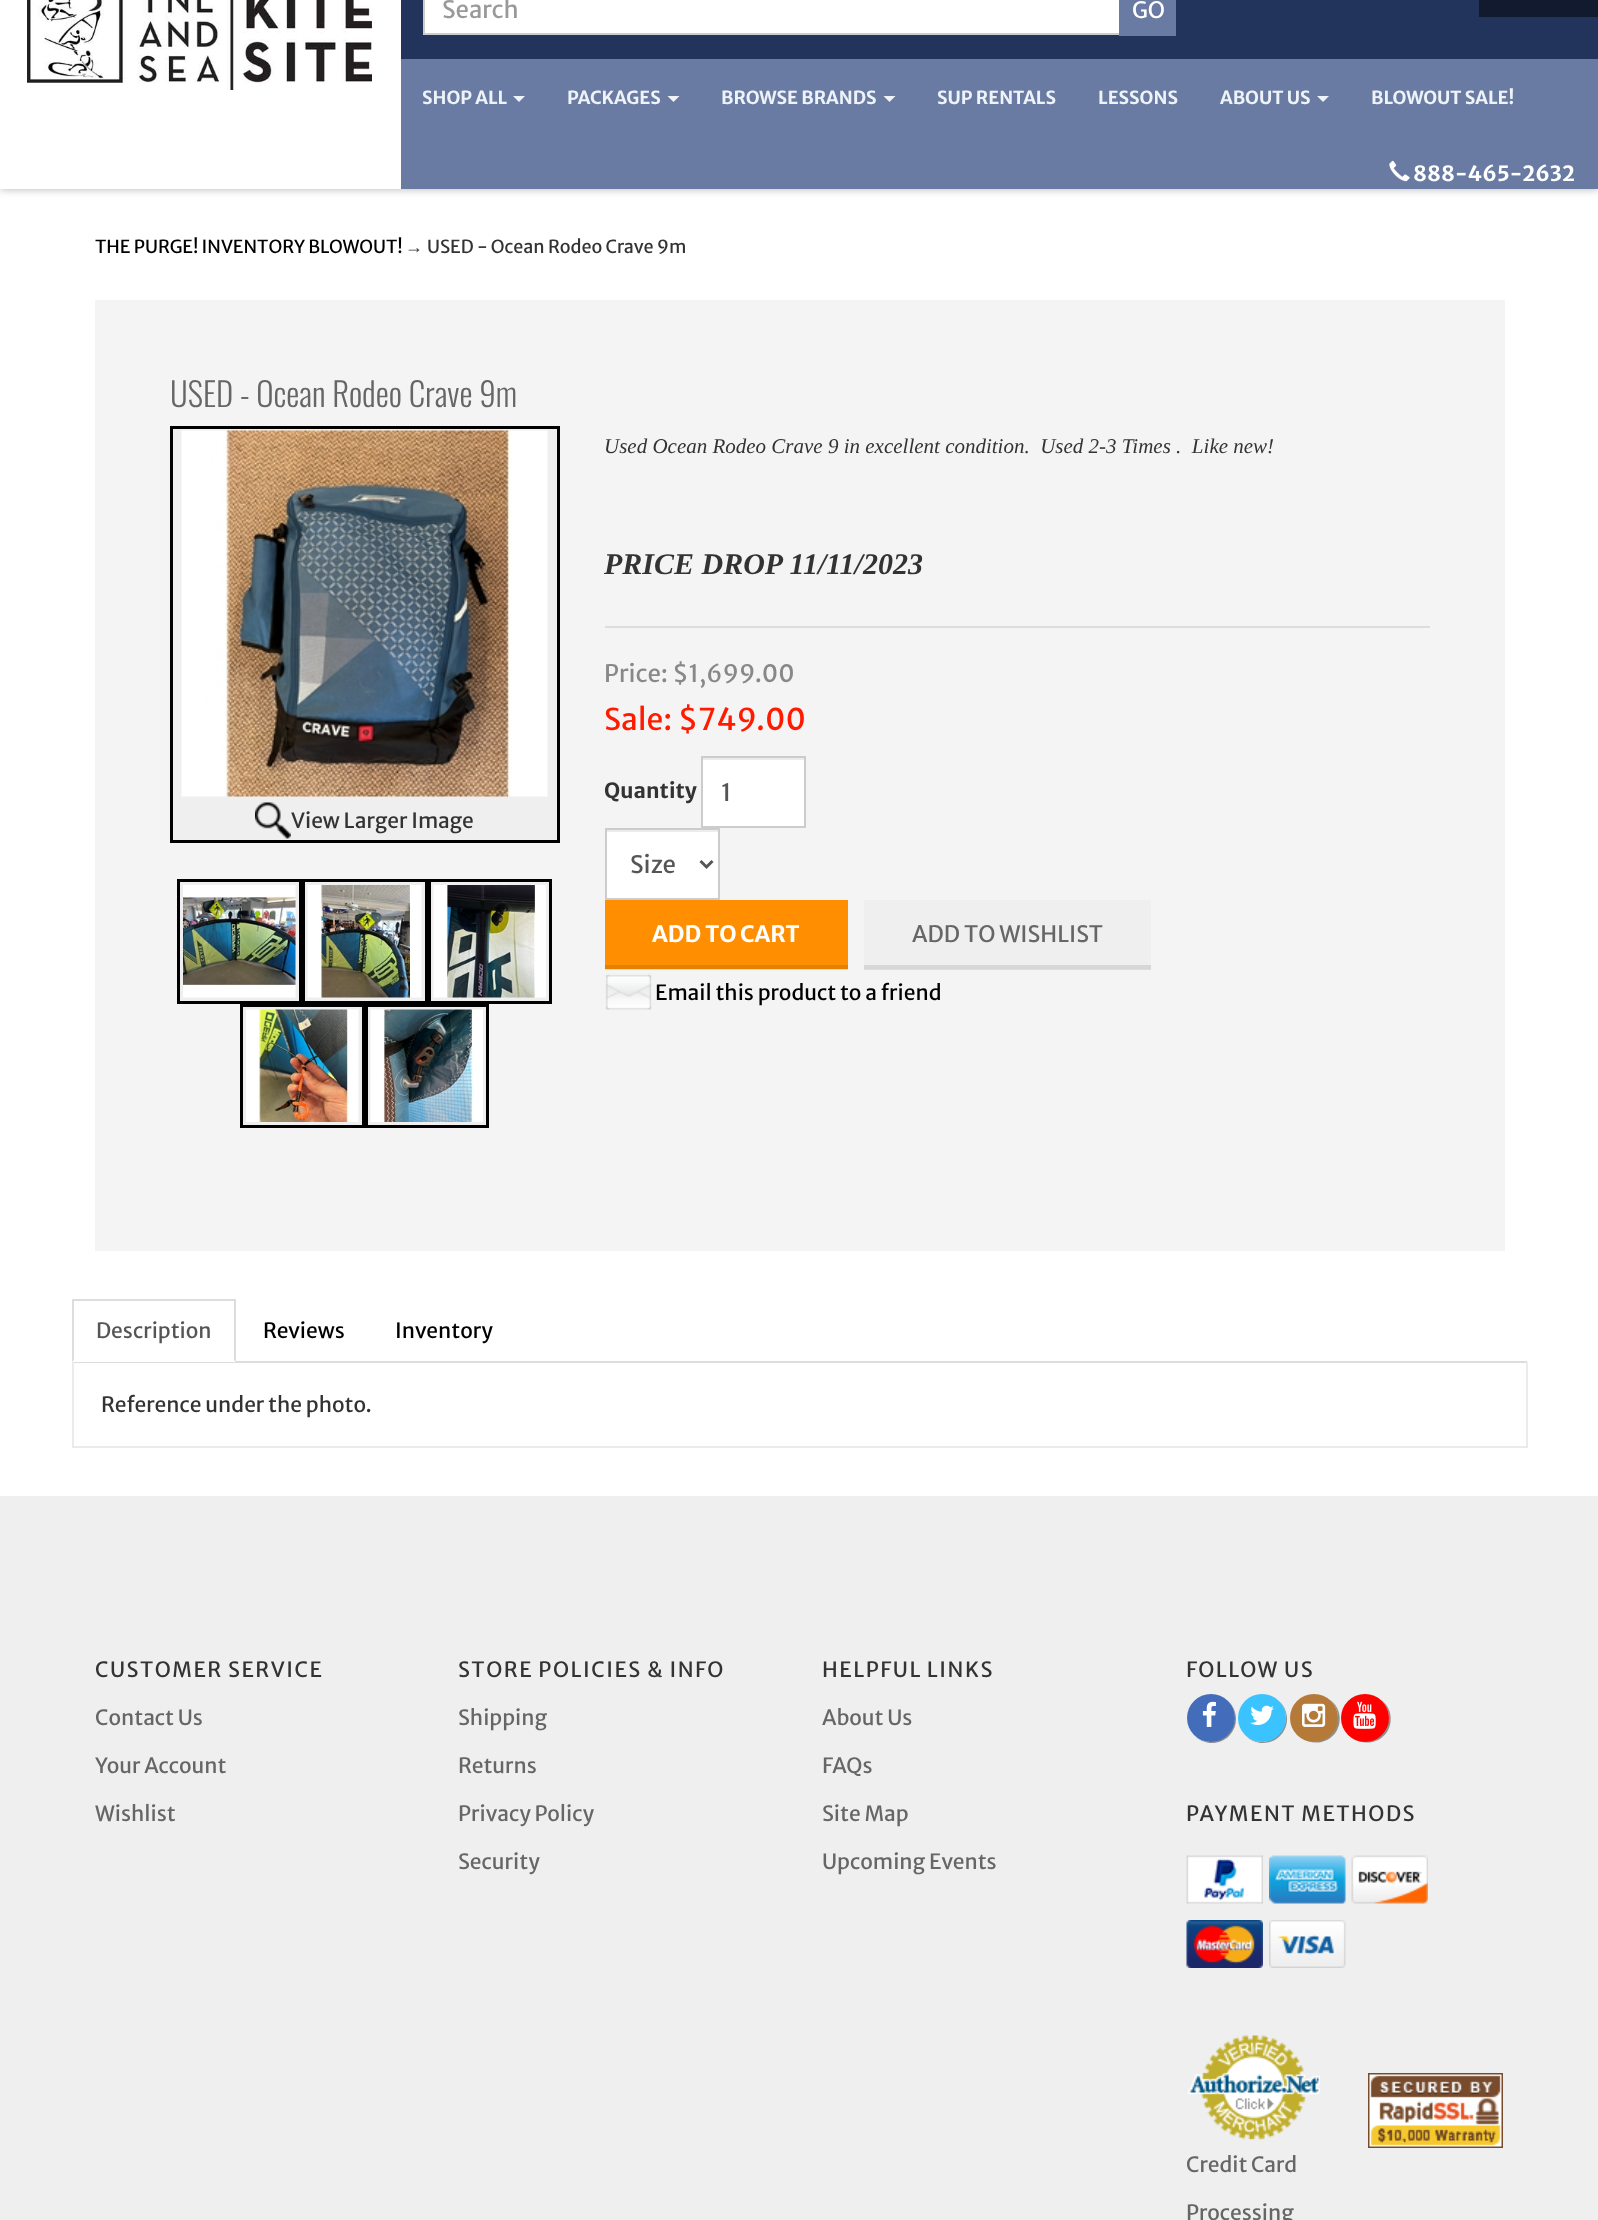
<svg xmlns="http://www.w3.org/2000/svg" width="1598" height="2220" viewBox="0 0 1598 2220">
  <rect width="100%" height="100%" fill="#efefef"/>
  <path d="M0 189h1598v1307H0z" fill="#fff"/>
  <path d="M0 -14h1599v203H0z" fill="#0000004d" filter="blur(4.5px)"/>
  <path d="M0 0h401v189H0z" fill="#fff"/>
  <image x="27" y="0" width="345" height="90" href="img/1.png"/>
  <path d="M401 0h1197v59H401z" fill="#22345c"/>
  <path d="M424 -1h696v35H424z" fill="#fff" stroke="#ccc" stroke-width="2"/>
  <path d="M1119 0h57v36H1119z" fill="#697ba2"/>
  <path d="M1479 0h119v17H1479z" fill="#111a2e"/>
  <path d="M401 59h1197v130H401z" fill="#697ba2"/>
  <path d="M513 96H525L519 102Z" fill="#eef3f9"/>
  <path d="M667.5 96H679.5L673.5 102Z" fill="#eef3f9"/>
  <path d="M883.5 96H895.5L889.5 102Z" fill="#eef3f9"/>
  <path d="M1317 96H1329L1323 102Z" fill="#eef3f9"/>
  <image x="1389" y="160" width="21" height="22" href="img/2.png"/>
  <path d="M95 300h1410v951H95z" fill="#f4f4f4"/>
  <path d="M864 969h287v1H864z" fill="#dcdcdc"/>
  <path d="M605 969h243v1H605z" fill="#dcdcdc"/>
  <path d="M171.5 427.5h387v414H171.5z" fill="#efefef" stroke="#000" stroke-width="3"/>
  <image x="181" y="430" width="367" height="367" href="img/3.png"/>
  <image x="255" y="802" width="36" height="37" href="img/4.png"/>
  <path d="M178.5 880.5h122v122H178.5z" fill="#efefef" stroke="#000" stroke-width="3"/>
  <image x="183" y="885" width="113" height="113" href="img/5.png"/>
  <path d="M303.5 880.5h123v122H303.5z" fill="#efefef" stroke="#000" stroke-width="3"/>
  <image x="307" y="885" width="115" height="113" href="img/6.png"/>
  <path d="M429.5 880.5h121v122H429.5z" fill="#efefef" stroke="#000" stroke-width="3"/>
  <image x="433" y="885" width="113" height="113" href="img/7.png"/>
  <path d="M241.5 1005.5h122v121H241.5z" fill="#efefef" stroke="#000" stroke-width="3"/>
  <image x="246" y="1009" width="113" height="113" href="img/8.png"/>
  <path d="M366.5 1005.5h121v121H366.5z" fill="#efefef" stroke="#000" stroke-width="3"/>
  <image x="370" y="1009" width="113" height="113" href="img/9.png"/>
  <path d="M605 626h825v2H605z" fill="#ddd"/>
  <path d="M703 760h101v66H703z" fill="#fff"/>
  <path d="M702 758h102v2H702z" fill="#ececec"/>
  <path d="M702 757h103v70H702z" fill="none" stroke="#ccc" stroke-width="2"/>
  <path d="M607 832h111v66H607z" fill="#fff"/>
  <path d="M606 830h113v2H606z" fill="#ececec"/>
  <path d="M606 829h113v70H606z" fill="none" stroke="#ccc" stroke-width="2"/>
  <path d="M700.5 861L706.5 867L712.5 861" fill="none" stroke="#555" stroke-width="3"/>
  <path d="M605 900h243v65H605z" fill="#ff8f00"/>
  <path d="M605 965h243v4H605z" fill="#e68100"/>
  <path d="M864 900h287v65H864z" fill="#efefef"/>
  <path d="M864 965h287v4H864z" fill="#d7d7d7"/>
  <image x="605" y="974" width="47" height="36" href="img/10.png"/>
  <path d="M72 1361h1455v2H72z" fill="#ddd"/>
  <path d="M72 1361h164v1H72z" fill="#fff"/>
  <path d="M72 1299h164v2H72z" fill="#ddd"/>
  <path d="M236 1299V1362L234 1360V1300Z" fill="#ddd"/>
  <path d="M72 1362V1299L74 1300V1360Z" fill="#ddd"/>
  <path d="M1526 1362h2v86H1526z" fill="#ebebeb"/>
  <path d="M72 1446h1455v2H72z" fill="#ebebeb"/>
  <path d="M72 1362h2v86H72z" fill="#ebebeb"/>
  <path d="M1194 1735C1203 1745 1219 1746 1229 1736C1239 1726 1238 1710 1228 1701C1249 1724 1217 1756 1194 1735Z" fill="#8f8f8f"/>
  <circle cx="1211" cy="1718" r="24" fill="#436dba"/>
  <image x="1202" y="1701" width="14" height="26" href="img/11.png"/>
  <path d="M1245 1735C1254 1745 1270 1746 1280 1736C1290 1726 1289 1710 1279 1701C1300 1724 1268 1756 1245 1735Z" fill="#8f8f8f"/>
  <circle cx="1262" cy="1718" r="24" fill="#3ac3ff"/>
  <image x="1250" y="1705" width="24" height="20" href="img/12.png"/>
  <path d="M1301 1737C1311 1746 1328 1744 1336 1732C1343 1721 1340 1706 1329 1699C1352 1718 1325 1754 1301 1737Z" fill="#8f8f8f"/>
  <circle cx="1314" cy="1718" r="24" fill="#b57a37"/>
  <image x="1302" y="1703" width="24" height="24" href="img/13.png"/>
  <path d="M1352 1737C1362 1746 1379 1744 1387 1732C1394 1721 1391 1706 1380 1699C1403 1718 1376 1754 1352 1737Z" fill="#8f8f8f"/>
  <circle cx="1365" cy="1718" r="24" fill="#f00"/>
  <image x="1353" y="1701" width="23" height="28" href="img/14.png"/>
  <image x="1186" y="1855" width="77" height="49" href="img/15.png"/>
  <image x="1269" y="1855" width="77" height="49" href="img/16.png"/>
  <image x="1351" y="1855" width="77" height="49" href="img/17.png"/>
  <image x="1186" y="1920" width="77" height="48" href="img/18.png"/>
  <image x="1269" y="1920" width="77" height="48" href="img/19.png"/>
  <image x="1368" y="2073" width="135" height="75" href="img/20.png"/>
  <image x="1188" y="2035" width="132" height="105" href="img/21.png"/>
  <text x="442" y="18" font-family="Merriweather Sans" font-size="24" fill="#999">Search</text>
  <text x="1132" y="18" font-family="Merriweather Sans" font-size="22.5" fill="#fff">GO</text>
  <g font-family="Merriweather Sans" font-size="18" font-weight="bold" fill="#eef3f9">
    <text x="422" y="104">SHOP ALL</text>
    <text x="567" y="104">PACKAGES</text>
    <text x="721" y="104">BROWSE BRANDS</text>
    <text x="937" y="104">SUP RENTALS</text>
    <text x="1098" y="104">LESSONS</text>
    <text x="1220" y="104">ABOUT US</text>
    <text x="1371" y="104">BLOWOUT SALE!</text>
  </g>
  <text x="1413" y="181" font-family="Merriweather Sans" font-size="21" font-weight="bold" fill="#fff">888-465-2632</text>
  <text x="95" y="253" font-family="Merriweather Sans" font-size="18" fill="#000">THE PURGE! INVENTORY BLOWOUT!</text>
  <text x="405" y="253" font-family="Liberation Serif" font-size="18" fill="#333">→</text>
  <text x="427" y="253" font-family="Merriweather Sans" font-size="18" fill="#333">USED - Ocean Rodeo Crave 9m</text>
  <text x="170" y="407" font-family="Oswald" font-size="33" font-weight="300" fill="#666">USED - Ocean Rodeo Crave 9m</text>
  <text x="291" y="828" font-family="Merriweather Sans" font-size="21" fill="#333">View Larger Image</text>
  <text x="604" y="453" font-family="Liberation Serif" font-size="21" font-style="italic" fill="#333" xml:space="preserve">Used Ocean Rodeo Crave 9 in excellent condition.  Used 2-3 Times .  Like new!</text>
  <text x="604" y="574" font-family="Liberation Serif" font-size="30" font-weight="bold" font-style="italic" fill="#333">PRICE DROP 11/11/2023</text>
  <text x="604" y="682" font-family="Merriweather Sans" font-size="24" fill="#888">Price: $1,699.00</text>
  <text x="604" y="730" font-family="Merriweather Sans" font-size="30" fill="#ff1a00">Sale: $749.00</text>
  <text x="604" y="798" font-family="Merriweather Sans" font-size="21" font-weight="bold" fill="#333">Quantity</text>
  <g font-family="Merriweather Sans" font-size="24" fill="#555">
    <text x="721" y="801">1</text>
    <text x="630" y="873">Size</text>
  </g>
  <text x="652" y="942" font-family="Merriweather Sans" font-size="22.5" font-weight="bold" fill="#fff">ADD TO CART</text>
  <text x="912" y="942" font-family="Merriweather Sans" font-size="22.5" fill="#666">ADD TO WISHLIST</text>
  <text x="655" y="1000" font-family="Merriweather Sans" font-size="21" fill="#000">Email this product to a friend</text>
  <text x="96" y="1338" font-family="Merriweather Sans" font-size="21" fill="#555">Description</text>
  <g font-family="Merriweather Sans" font-size="21" fill="#000">
    <text x="263" y="1338">Reviews</text>
    <text x="395" y="1338">Inventory</text>
  </g>
  <text x="101" y="1412" font-family="Merriweather Sans" font-size="21" fill="#333">Reference under the photo.</text>
  <text x="95" y="1677" font-family="Merriweather Sans" font-size="21" letter-spacing="1.5" fill="#333">CUSTOMER SERVICE</text>
  <g font-family="Merriweather Sans" font-size="21" fill="#666">
    <text x="95" y="1725">Contact Us</text>
    <text x="95" y="1773">Your Account</text>
    <text x="95" y="1821">Wishlist</text>
  </g>
  <text x="458" y="1677" font-family="Merriweather Sans" font-size="21" letter-spacing="1.5" fill="#333">STORE POLICIES &amp; INFO</text>
  <g font-family="Merriweather Sans" font-size="21" fill="#666">
    <text x="458" y="1725">Shipping</text>
    <text x="458" y="1773">Returns</text>
    <text x="458" y="1821">Privacy Policy</text>
    <text x="458" y="1869">Security</text>
  </g>
  <text x="822" y="1677" font-family="Merriweather Sans" font-size="21" letter-spacing="1.5" fill="#333">HELPFUL LINKS</text>
  <g font-family="Merriweather Sans" font-size="21" fill="#666">
    <text x="822" y="1725">About Us</text>
    <text x="822" y="1773">FAQs</text>
    <text x="822" y="1821">Site Map</text>
    <text x="822" y="1869">Upcoming Events</text>
  </g>
  <g font-family="Merriweather Sans" font-size="21" letter-spacing="1.5" fill="#333">
    <text x="1186" y="1677">FOLLOW US</text>
    <text x="1186" y="1821">PAYMENT METHODS</text>
  </g>
  <g font-family="Merriweather Sans" font-size="21" fill="#666">
    <text x="1186" y="2172">Credit Card</text>
    <text x="1186" y="2220">Processing</text>
  </g>
</svg>
